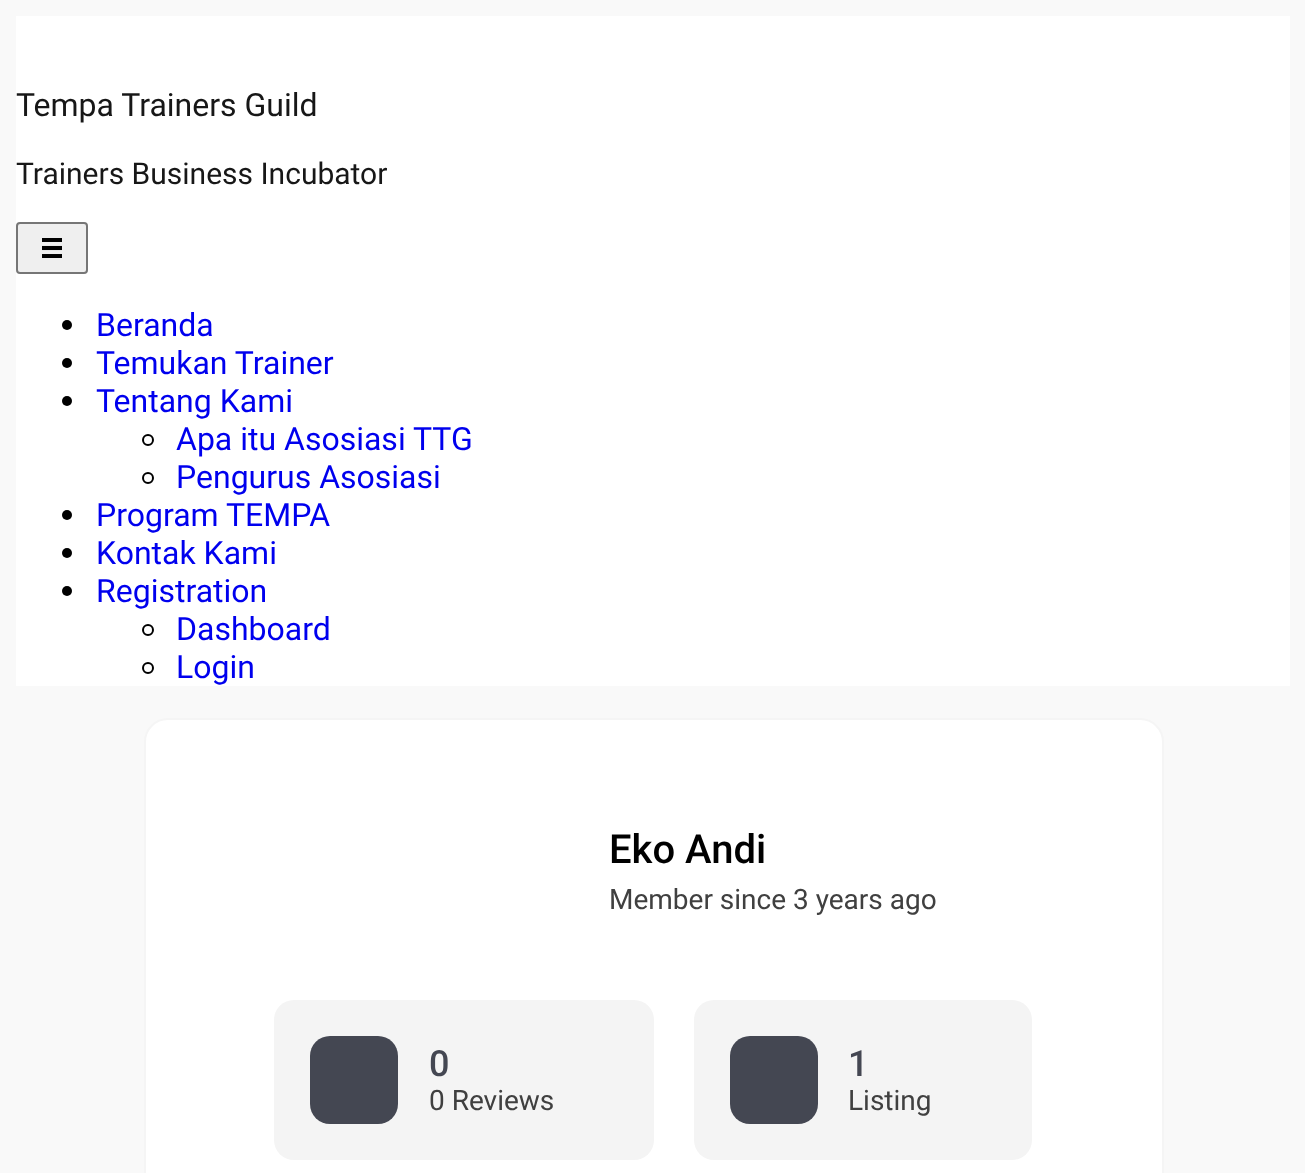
<svg xmlns="http://www.w3.org/2000/svg" width="1305" height="1173" viewBox="0 0 1305 1173">
  <rect width="100%" height="100%" fill="#f9f9f9"/>
  <rect x="16" y="16" width="1274" height="670" fill="#ffffff"/>
  <text x="16" y="116" font-family="Roboto" font-size="32" fill="#171717">Tempa Trainers Guild</text>
  <text x="16" y="184" font-family="Roboto" font-size="30" fill="#171717">Trainers Business Incubator</text>
  <rect x="17" y="223" width="70" height="50" rx="3" fill="#efefef" stroke="#767676" stroke-width="2"/>
  <image x="42" y="238" width="20" height="20" href="img1.png"/>
  <circle cx="67" cy="325" r="5" fill="#000000"/>
  <text x="96" y="336" font-family="Roboto" font-size="32" fill="#0000ee">Beranda</text>
  <circle cx="67" cy="363" r="5" fill="#000000"/>
  <text x="96" y="374" font-family="Roboto" font-size="32" fill="#0000ee">Temukan Trainer</text>
  <circle cx="67" cy="401" r="5" fill="#000000"/>
  <text x="96" y="412" font-family="Roboto" font-size="32" fill="#0000ee">Tentang Kami</text>
  <circle cx="148" cy="440" r="5" fill="none" stroke="#000000" stroke-width="2"/>
  <text x="176" y="450" font-family="Roboto" font-size="32" fill="#0000ee">Apa itu Asosiasi TTG</text>
  <circle cx="148" cy="478" r="5" fill="none" stroke="#000000" stroke-width="2"/>
  <text x="176" y="488" font-family="Roboto" font-size="32" fill="#0000ee">Pengurus Asosiasi</text>
  <circle cx="67" cy="515" r="5" fill="#000000"/>
  <text x="96" y="526" font-family="Roboto" font-size="32" fill="#0000ee">Program TEMPA</text>
  <circle cx="67" cy="553" r="5" fill="#000000"/>
  <text x="96" y="564" font-family="Roboto" font-size="32" fill="#0000ee">Kontak Kami</text>
  <circle cx="67" cy="591" r="5" fill="#000000"/>
  <text x="96" y="602" font-family="Roboto" font-size="32" fill="#0000ee">Registration</text>
  <circle cx="148" cy="630" r="5" fill="none" stroke="#000000" stroke-width="2"/>
  <text x="176" y="640" font-family="Roboto" font-size="32" fill="#0000ee">Dashboard</text>
  <circle cx="148" cy="668" r="5" fill="none" stroke="#000000" stroke-width="2"/>
  <text x="176" y="678" font-family="Roboto" font-size="32" fill="#0000ee">Login</text>
  <rect x="145" y="719" width="1018" height="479" rx="23" fill="#ffffff" stroke="#f5f5f5" stroke-width="2"/>
  <text x="609" y="863" font-family="Roboto" font-size="40" font-weight="500" fill="#000000">Eko Andi</text>
  <text x="609" y="909" font-family="Roboto" font-size="28" fill="#404040">Member since 3 years ago</text>
  <rect x="274" y="1000" width="380" height="160" rx="20" fill="#f4f4f4"/>
  <rect x="310" y="1036" width="88" height="88" rx="20" fill="#444752"/>
  <text x="429" y="1076" font-family="Roboto" font-size="36" font-weight="500" fill="#444752">0</text>
  <text x="429" y="1110" font-family="Roboto" font-size="28" fill="#404040">0 Reviews</text>
  <rect x="694" y="1000" width="338" height="160" rx="20" fill="#f4f4f4"/>
  <rect x="730" y="1036" width="88" height="88" rx="20" fill="#444752"/>
  <text x="848" y="1076" font-family="Roboto" font-size="36" font-weight="500" fill="#444752">1</text>
  <text x="848" y="1110" font-family="Roboto" font-size="28" fill="#404040">Listing</text>
</svg>
